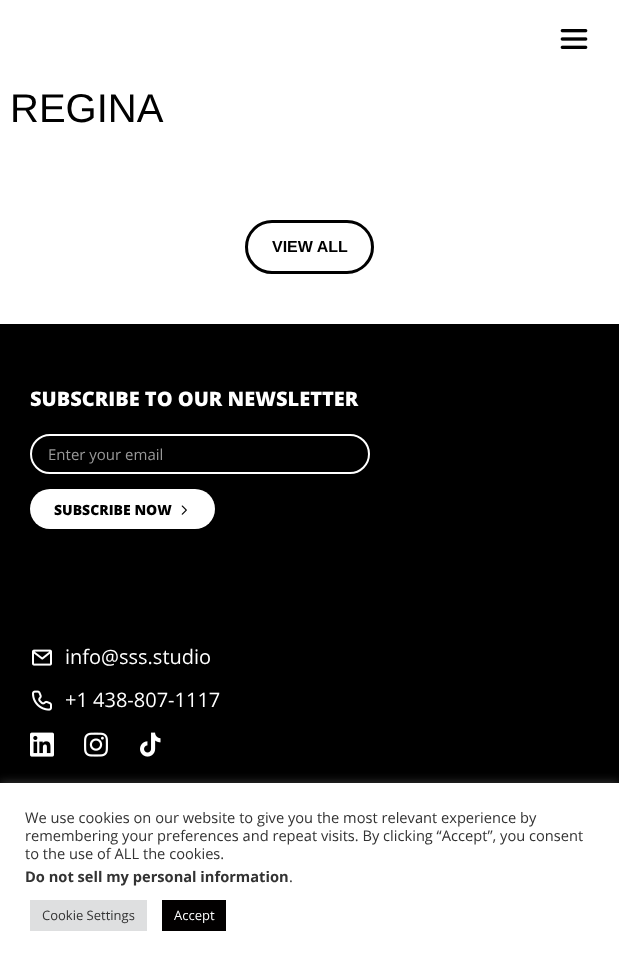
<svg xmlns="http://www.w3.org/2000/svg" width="619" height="961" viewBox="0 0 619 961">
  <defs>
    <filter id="blur1" x="-50%" y="-200%" width="200%" height="500%"><feGaussianBlur stdDeviation="5"/></filter>
  </defs>
  <rect width="100%" height="100%" fill="#ffffff"/>
  <image x="560" y="29" width="28" height="20" href="img1.png"/>
  <text x="10" y="122" font-family="Liberation Sans" font-size="40" fill="#000000">REGINA</text>
  <rect x="246.5" y="221.5" width="126" height="51" rx="25.5" fill="none" stroke="#000000" stroke-width="3"/>
  <text x="272" y="252" font-family="Liberation Sans" font-size="16" font-weight="bold" fill="#000000">VIEW ALL</text>
  <rect x="0" y="324" width="619" height="459" fill="#000000"/>
  <text x="30" y="406" font-family="Open Sans" font-size="20" font-weight="800" fill="#ffffff">SUBSCRIBE TO OUR NEWSLETTER</text>
  <rect x="31" y="435" width="338" height="38" rx="19" fill="none" stroke="#ffffff" stroke-width="2"/>
  <text x="48" y="460" font-family="Open Sans" font-size="15" fill="#999999">Enter your email</text>
  <rect x="30" y="489" width="185" height="40" rx="20" fill="#ffffff"/>
  <text x="54" y="515" font-family="Open Sans" font-size="14" font-weight="800" fill="#000000">SUBSCRIBE NOW</text>
  <image x="181" y="505" width="6" height="10" href="img2.png"/>
  <image x="32" y="649" width="20" height="17" href="img3.png"/>
  <text x="65" y="664" font-family="Open Sans" font-size="20" fill="#ffffff">info@sss.studio</text>
  <image x="32" y="690" width="20" height="21" href="img4.png"/>
  <text x="65" y="707" font-family="Open Sans" font-size="20" fill="#ffffff">+1 438-807-1117</text>
  <image x="30" y="732" width="24" height="25" href="img5.png"/>
  <image x="84" y="732" width="24" height="25" href="img6.png"/>
  <image x="140" y="732" width="21" height="25" href="img7.png"/>
  <rect x="0" y="782" width="619" height="178" fill="#acabab" fill-opacity="0.3" filter="url(#blur1)"/>
  <rect x="0" y="783" width="619" height="178" fill="#ffffff"/>
  <text x="25" y="823" font-family="Open Sans" font-size="14.65" fill="#333333">We use cookies on our website to give you the most relevant experience by</text>
  <text x="25" y="841" font-family="Open Sans" font-size="14.65" fill="#333333">remembering your preferences and repeat visits. By clicking “Accept”, you consent</text>
  <text x="25" y="859" font-family="Open Sans" font-size="14.65" fill="#333333">to the use of ALL the cookies.</text>
  <text x="25" y="882" font-family="Open Sans" font-size="14.65" font-weight="bold" fill="#333333">Do not sell my personal information</text>
  <text x="289" y="882" font-family="Open Sans" font-size="14.65" fill="#333333">.</text>
  <rect x="30" y="900" width="117" height="31" fill="#dedfe0"/>
  <text x="42" y="920" font-family="Open Sans" font-size="13" fill="#333333">Cookie Settings</text>
  <rect x="162" y="900" width="64" height="31" fill="#020000"/>
  <text x="174" y="920" font-family="Open Sans" font-size="13" fill="#ffffff">Accept</text>
</svg>
